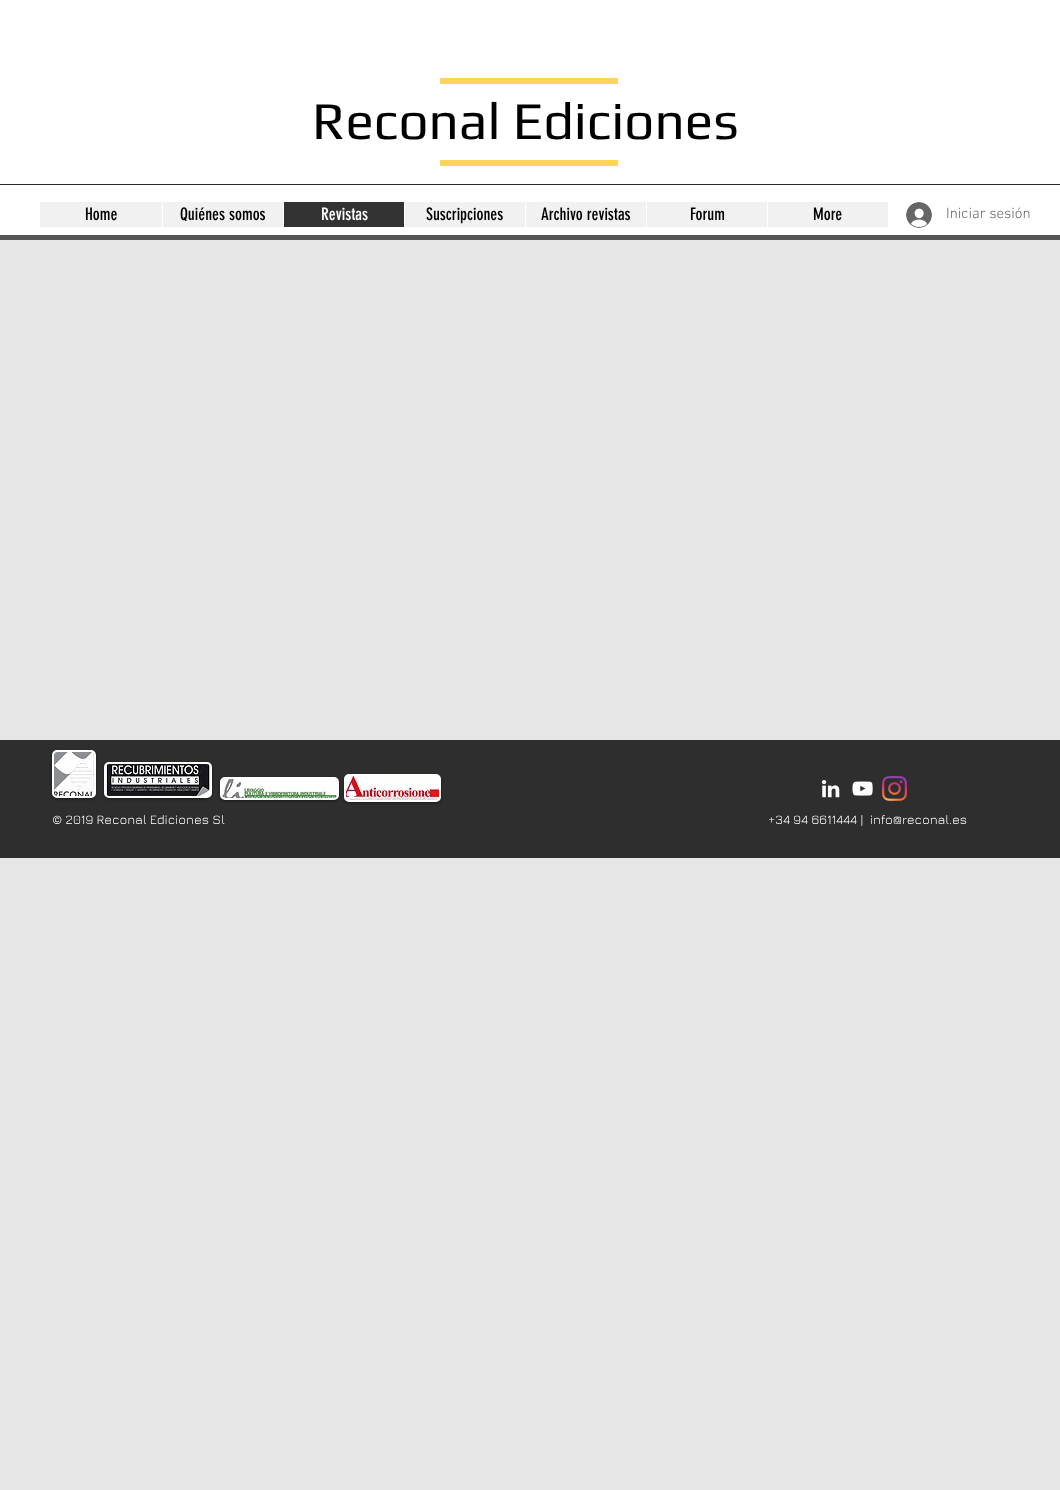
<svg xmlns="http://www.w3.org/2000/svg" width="1060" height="1490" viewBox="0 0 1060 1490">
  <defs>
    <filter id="blur1" x="-50%" y="-200%" width="200%" height="500%"><feGaussianBlur stdDeviation="1.5"/></filter>
  </defs>
  <rect width="100%" height="100%" fill="#e6e6e6"/>
  <rect x="0" y="0" width="1060" height="235" fill="#ffffff"/>
  <rect x="0" y="235" width="1060" height="5" fill="#555555"/>
  <rect x="440" y="78" width="178" height="6" fill="#ffd45a"/>
  <text x="312" y="139" font-family="Play" font-size="53" fill="#000000">Reconal Ediciones</text>
  <rect x="440" y="160" width="178" height="6" fill="#ffd45a"/>
  <rect x="0" y="184" width="1060" height="1" fill="#2a2a2a"/>
  <rect x="40" y="202" width="848" height="25" fill="#f1f1f1"/>
  <text x="85" y="220" font-family="'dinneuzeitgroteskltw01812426'" font-size="17" fill="#000000">Home</text>
  <rect x="162" y="202" width="1" height="25" fill="#ffffff"/>
  <text x="180" y="220" font-family="'dinneuzeitgroteskltw01812426'" font-size="17" fill="#000000">Quiénes somos</text>
  <rect x="284" y="202" width="120" height="25" fill="#323232"/>
  <rect x="283" y="202" width="1" height="25" fill="#ffffff"/>
  <text x="321" y="220" font-family="'dinneuzeitgroteskltw01812426'" font-size="17" fill="#ffffff">Revistas</text>
  <rect x="404" y="202" width="1" height="25" fill="#ffffff"/>
  <text x="426" y="220" font-family="'dinneuzeitgroteskltw01812426'" font-size="17" fill="#000000">Suscripciones</text>
  <rect x="525" y="202" width="1" height="25" fill="#ffffff"/>
  <text x="541" y="220" font-family="'dinneuzeitgroteskltw01812426'" font-size="17" fill="#000000">Archivo revistas</text>
  <rect x="646" y="202" width="1" height="25" fill="#ffffff"/>
  <text x="690" y="220" font-family="'dinneuzeitgroteskltw01812426'" font-size="17" fill="#000000">Forum</text>
  <rect x="767" y="202" width="1" height="25" fill="#ffffff"/>
  <text x="813" y="220" font-family="'dinneuzeitgroteskltw01812426'" font-size="17" fill="#000000">More</text>
  <image x="906" y="202" width="26" height="26" href="img1.png"/>
  <text x="946" y="218" font-family="'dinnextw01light'" font-size="15" font-weight="300" fill="#666666">Iniciar sesión</text>
  <rect x="0" y="740" width="1060" height="118" fill="#2f2e2e"/>
  <rect x="52" y="751" width="44" height="48" rx="5" fill="#000000" fill-opacity="0.5" filter="url(#blur1)"/>
  <rect x="53" y="751" width="42" height="46" rx="4" fill="#ffffff" stroke="#ffffff" stroke-width="2"/>
  <image x="54" y="752" width="40" height="44" href="img2.png"/>
  <rect x="104" y="763" width="108" height="36" rx="5" fill="#000000" fill-opacity="0.5" filter="url(#blur1)"/>
  <rect x="105" y="763" width="106" height="34" rx="4" fill="#ffffff" stroke="#ffffff" stroke-width="2"/>
  <image x="106" y="764" width="104" height="32" href="img3.png"/>
  <rect x="220" y="778" width="119" height="23" rx="5" fill="#000000" fill-opacity="0.5" filter="url(#blur1)"/>
  <rect x="221" y="778" width="117" height="21" rx="4" fill="#ffffff" stroke="#ffffff" stroke-width="2"/>
  <image x="222" y="779" width="115" height="19" href="img4.png"/>
  <rect x="344" y="775" width="97" height="28" rx="5" fill="#000000" fill-opacity="0.5" filter="url(#blur1)"/>
  <rect x="345" y="775" width="95" height="26" rx="4" fill="#ffffff" stroke="#ffffff" stroke-width="2"/>
  <image x="346" y="776" width="93" height="24" href="img5.png"/>
  <image x="821" y="779" width="19" height="19" href="img6.png"/>
  <image x="852" y="781" width="21" height="15" href="img7.png"/>
  <image x="882" y="776" width="25" height="25" href="img8.png"/>
  <text x="52" y="824" font-family="Jura" font-size="13" fill="#ffffff">© 2019 Reconal Ediciones Sl</text>
  <text x="768" y="824" font-family="Jura" font-size="13" fill="#ffffff">+34 94 6611444 |</text>
  <text x="870" y="824" font-family="Jura" font-size="13" fill="#ffffff">info@reconal.es</text>
</svg>
